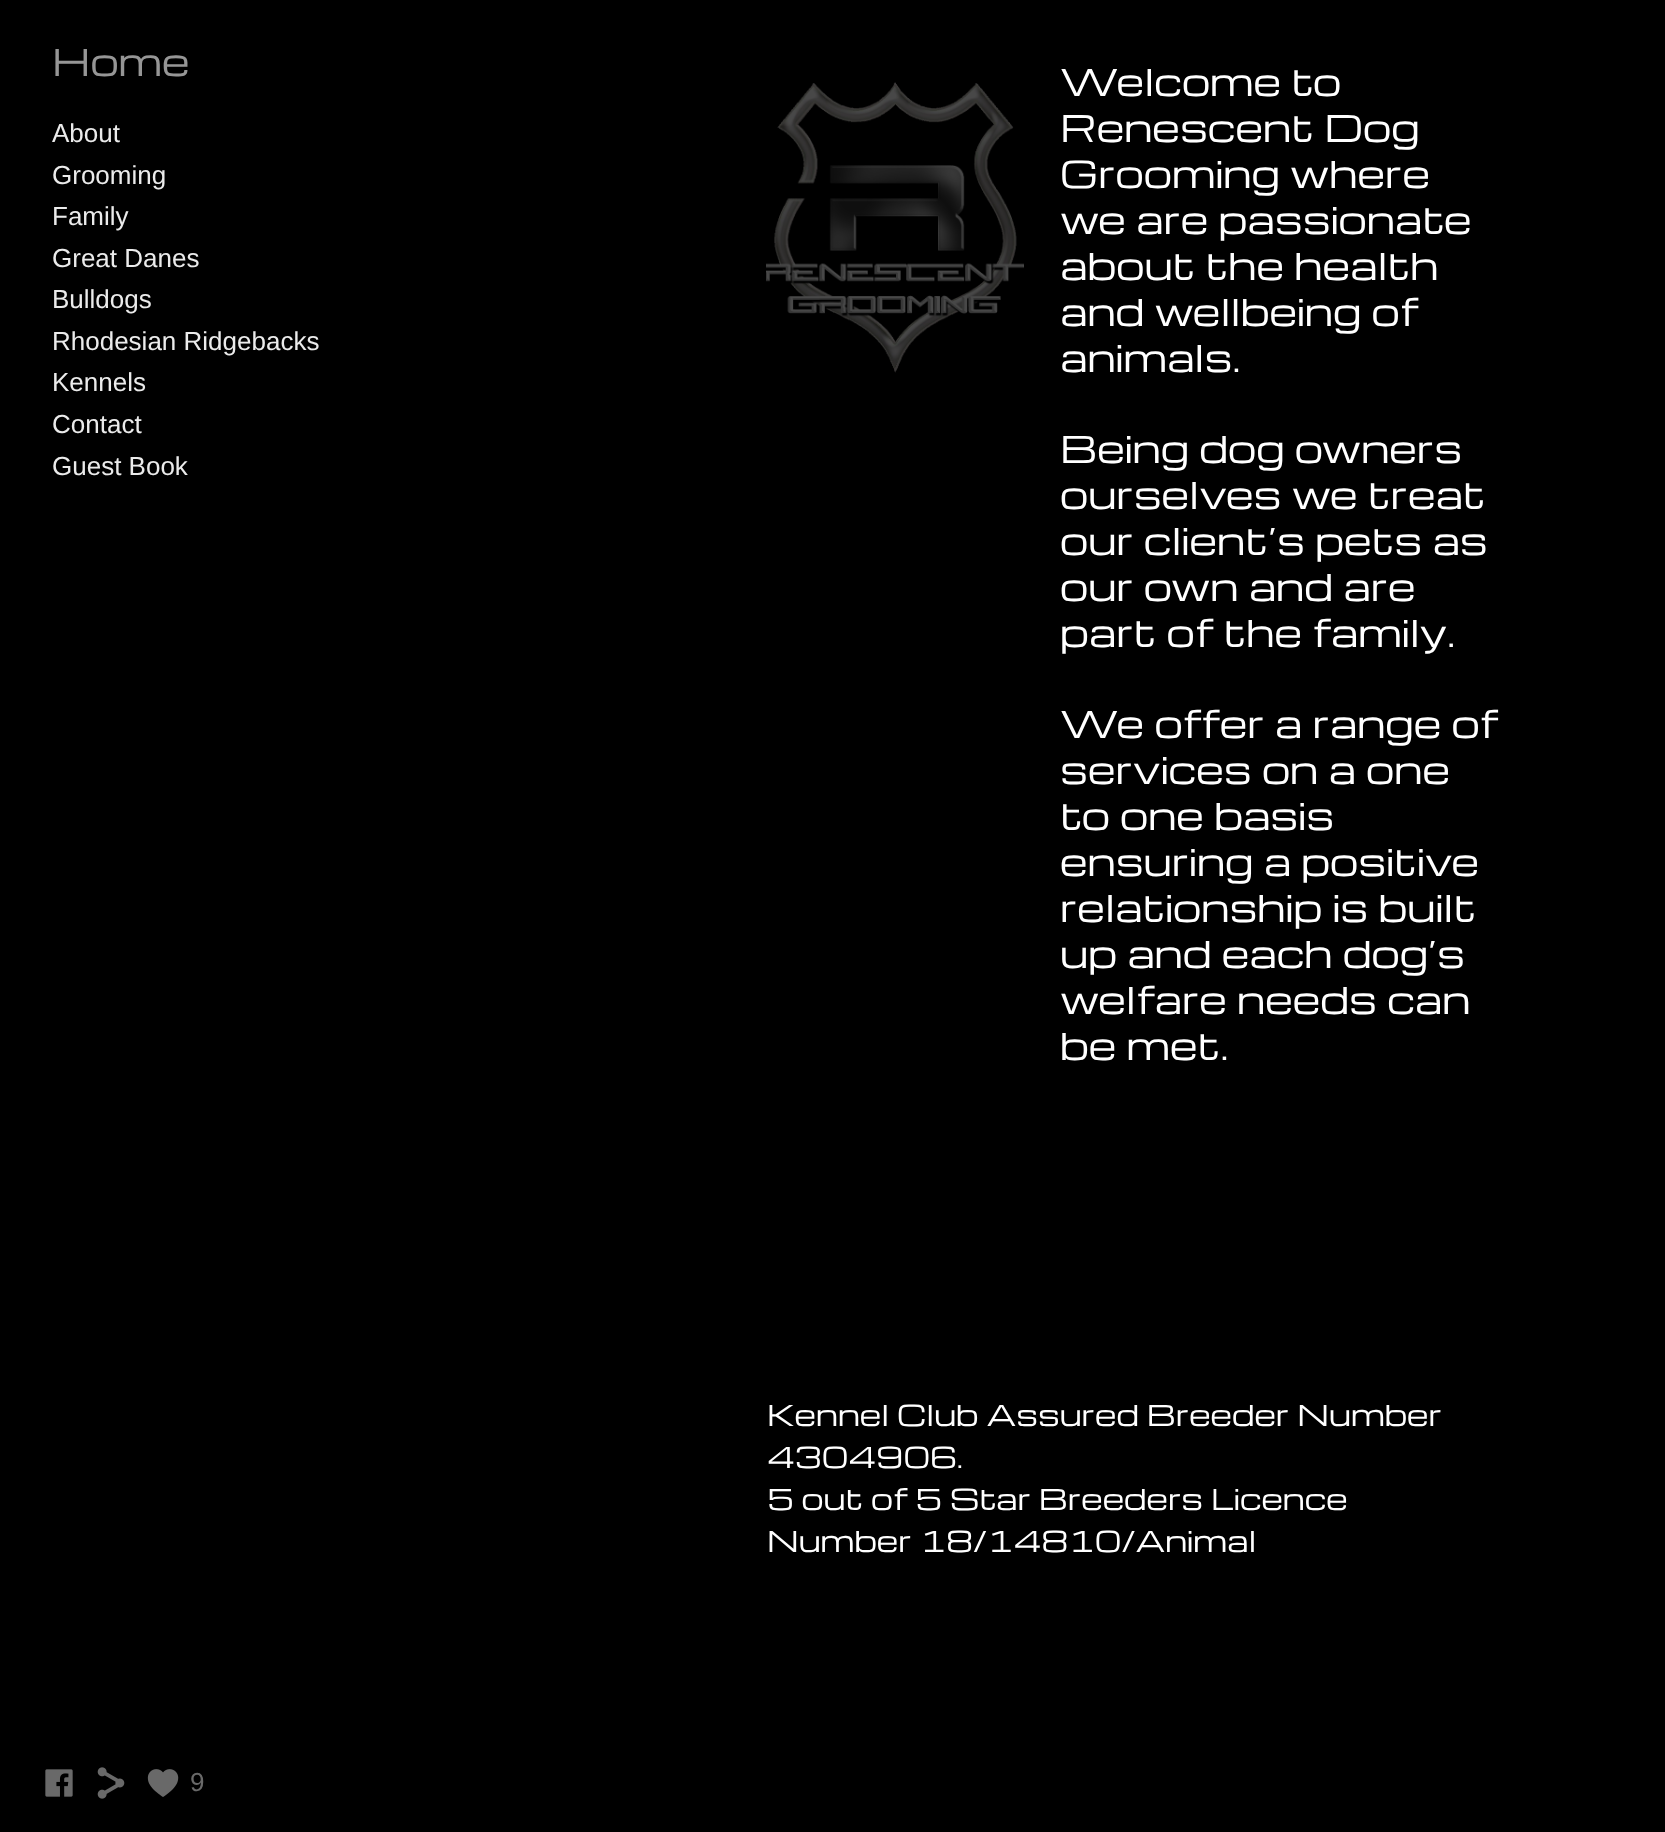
<svg xmlns="http://www.w3.org/2000/svg" width="1665" height="1832" viewBox="0 0 1665 1832">
  <rect width="100%" height="100%" fill="#000000"/>
  <text x="52" y="76" font-family="Michroma" font-size="36" fill="#969696">Home</text>
  <text x="52" y="142" font-family="Liberation Sans" font-size="26" fill="#ebebeb">About</text>
  <text x="52" y="184" font-family="Liberation Sans" font-size="26" fill="#ebebeb">Grooming</text>
  <text x="52" y="225" font-family="Liberation Sans" font-size="26" fill="#ebebeb">Family</text>
  <text x="52" y="267" font-family="Liberation Sans" font-size="26" fill="#ebebeb">Great Danes</text>
  <text x="52" y="308" font-family="Liberation Sans" font-size="26" fill="#ebebeb">Bulldogs</text>
  <text x="52" y="350" font-family="Liberation Sans" font-size="26" fill="#ebebeb">Rhodesian Ridgebacks</text>
  <text x="52" y="391" font-family="Liberation Sans" font-size="26" fill="#ebebeb">Kennels</text>
  <text x="52" y="433" font-family="Liberation Sans" font-size="26" fill="#ebebeb">Contact</text>
  <text x="52" y="475" font-family="Liberation Sans" font-size="26" fill="#ebebeb">Guest Book</text>
  <image x="766" y="82" width="258" height="291" href="img1.png"/>
  <text x="1060" y="96" font-family="Michroma" font-size="36" fill="#ffffff">Welcome to</text>
  <text x="1060" y="142" font-family="Michroma" font-size="36" fill="#ffffff">Renescent Dog</text>
  <text x="1060" y="188" font-family="Michroma" font-size="36" fill="#ffffff">Grooming where</text>
  <text x="1060" y="234" font-family="Michroma" font-size="36" fill="#ffffff">we are passionate</text>
  <text x="1060" y="280" font-family="Michroma" font-size="36" fill="#ffffff">about the health</text>
  <text x="1060" y="326" font-family="Michroma" font-size="36" fill="#ffffff">and wellbeing of</text>
  <text x="1060" y="372" font-family="Michroma" font-size="36" fill="#ffffff">animals.</text>
  <text x="1060" y="463" font-family="Michroma" font-size="36" fill="#ffffff">Being dog owners</text>
  <text x="1060" y="509" font-family="Michroma" font-size="36" fill="#ffffff">ourselves we treat</text>
  <text x="1060" y="555" font-family="Michroma" font-size="36" fill="#ffffff">our client’s pets as</text>
  <text x="1060" y="601" font-family="Michroma" font-size="36" fill="#ffffff">our own and are</text>
  <text x="1060" y="647" font-family="Michroma" font-size="36" fill="#ffffff">part of the family.</text>
  <text x="1060" y="738" font-family="Michroma" font-size="36" fill="#ffffff">We offer a range of</text>
  <text x="1060" y="784" font-family="Michroma" font-size="36" fill="#ffffff">services on a one</text>
  <text x="1060" y="830" font-family="Michroma" font-size="36" fill="#ffffff">to one basis</text>
  <text x="1060" y="876" font-family="Michroma" font-size="36" fill="#ffffff">ensuring a positive</text>
  <text x="1060" y="922" font-family="Michroma" font-size="36" fill="#ffffff">relationship is built</text>
  <text x="1060" y="968" font-family="Michroma" font-size="36" fill="#ffffff">up and each dog’s</text>
  <text x="1060" y="1014" font-family="Michroma" font-size="36" fill="#ffffff">welfare needs can</text>
  <text x="1060" y="1060" font-family="Michroma" font-size="36" fill="#ffffff">be met.</text>
  <text x="767" y="1426" font-family="Michroma" font-size="28" fill="#ffffff">Kennel Club Assured Breeder Number</text>
  <text x="767" y="1468" font-family="Michroma" font-size="28" fill="#ffffff">4304906.</text>
  <text x="767" y="1510" font-family="Michroma" font-size="28" fill="#ffffff">5 out of 5 Star Breeders Licence</text>
  <text x="767" y="1552" font-family="Michroma" font-size="28" fill="#ffffff">Number 18/14810/Animal</text>
  <image x="45" y="1769" width="28" height="28" href="img2.png"/>
  <image x="97" y="1767" width="28" height="32" href="img3.png"/>
  <image x="147" y="1769" width="32" height="28" href="img4.png"/>
  <text x="190" y="1791" font-family="Liberation Sans" font-size="26" fill="#696969">9</text>
</svg>
